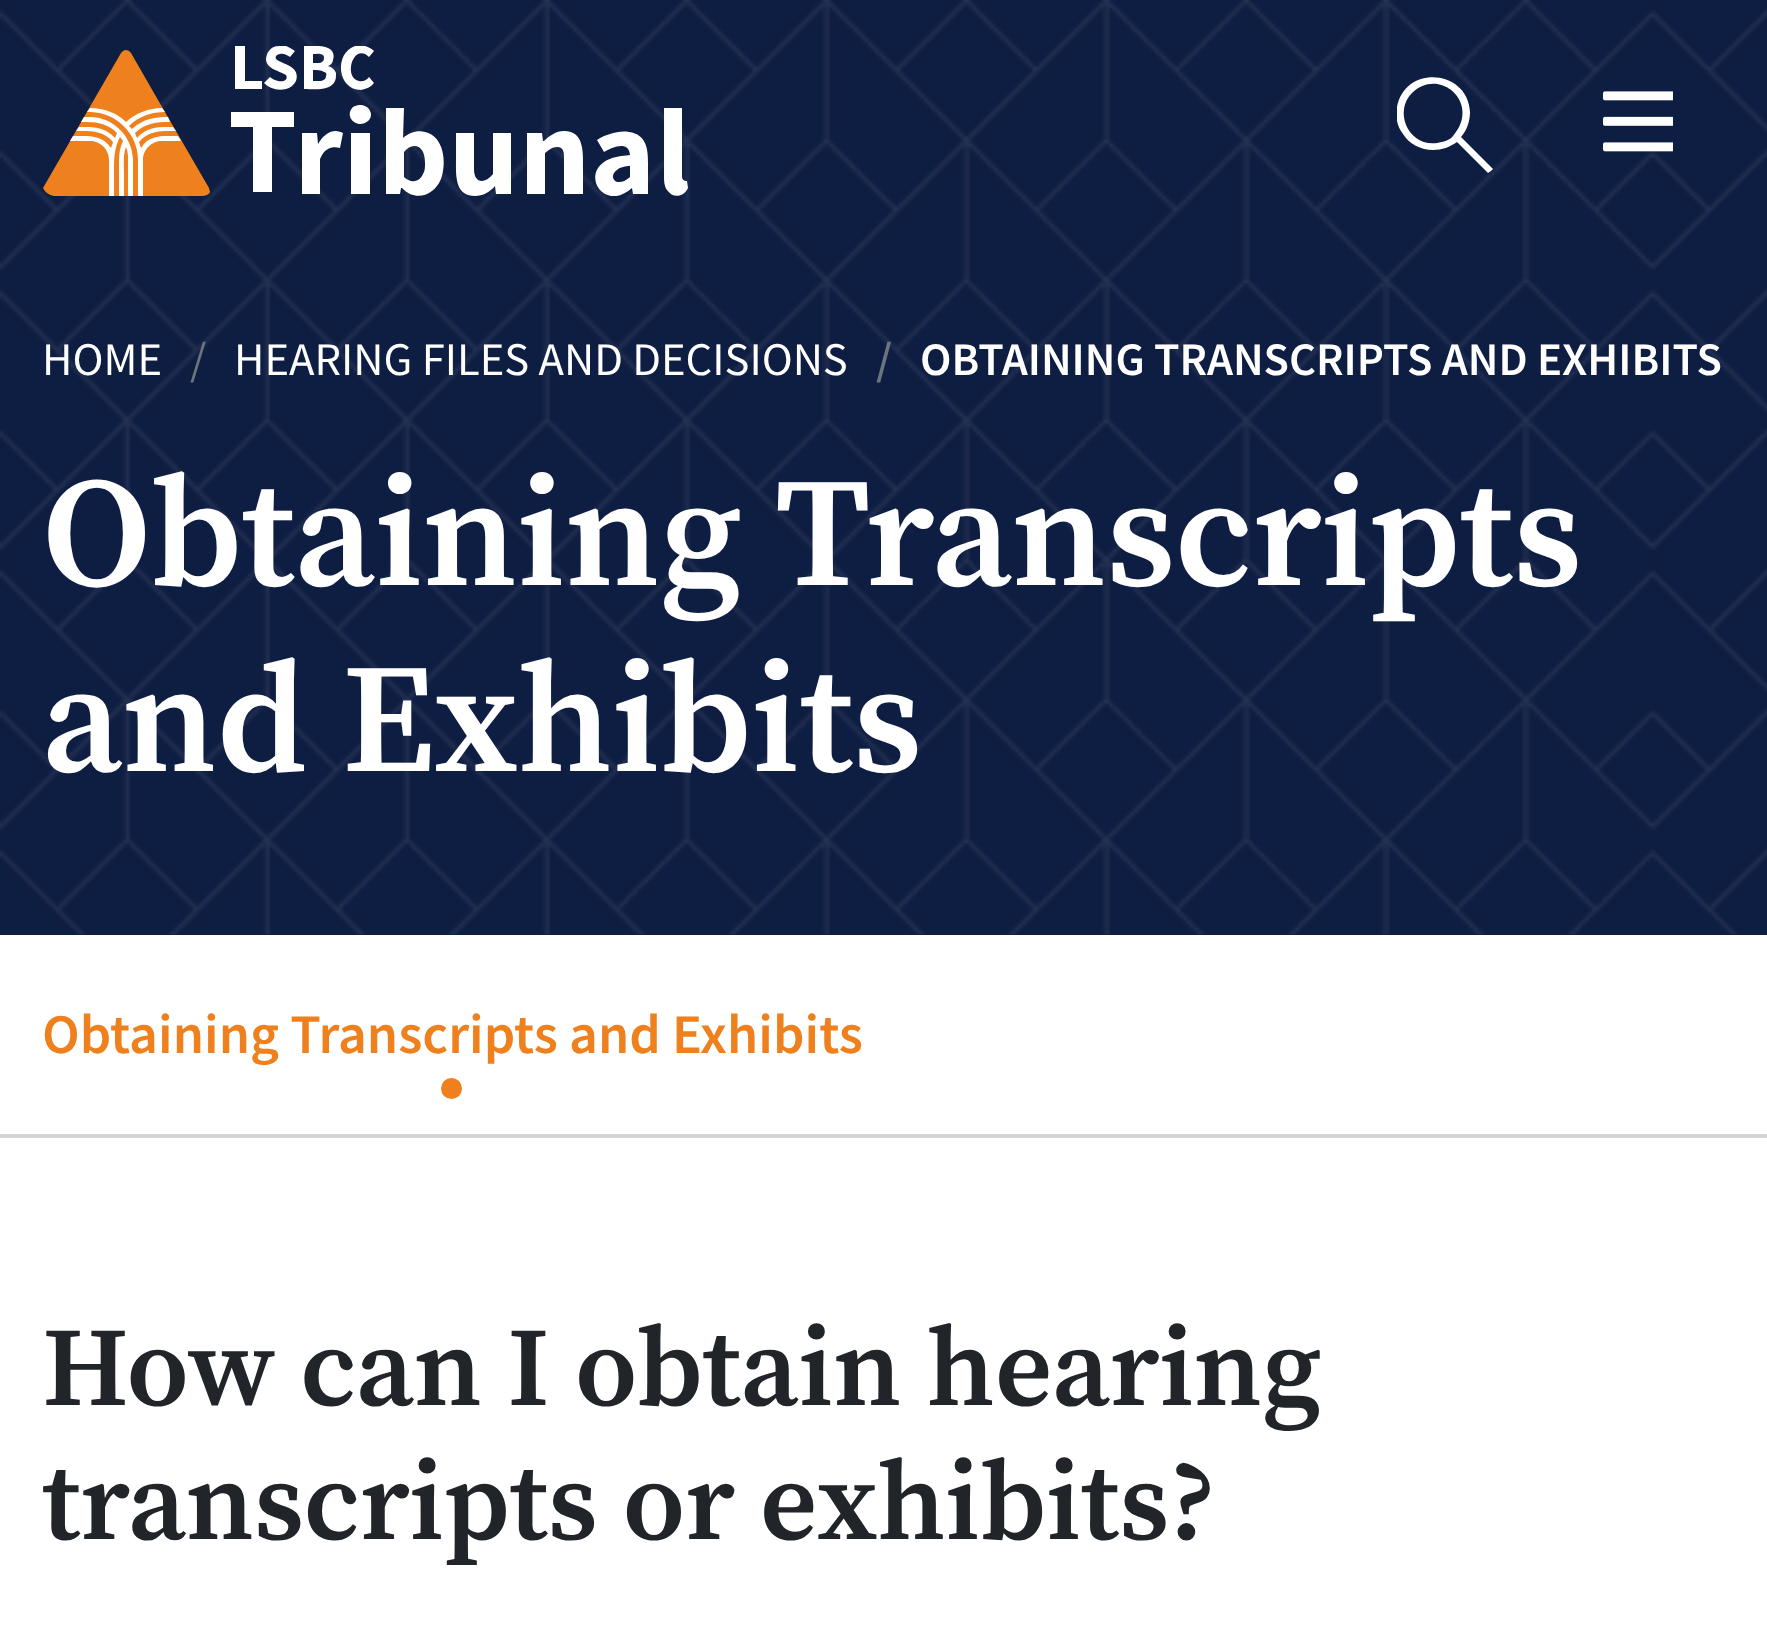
<svg xmlns="http://www.w3.org/2000/svg" width="1767" height="1638" viewBox="0 0 1767 1638">
  <defs>
    <clipPath id="clip1"><rect x="42" y="46" width="648" height="150"/></clipPath>
  </defs>
  <rect width="100%" height="100%" fill="#ffffff"/>
  <rect x="0" y="934" width="1767" height="1" fill="#0e1d42"/>
  <image x="0" y="0" width="1767" height="935" href="img1.png"/>
  <g clip-path="url(#clip1)">
    <path d="M131 53C128 49 124 49 121 53L43 188C49 201 71 196 81 196H179C185 196 208 199 210 192C210 191 209 189 209 188L158 100Z" fill="#ee811d"/>
  </g>
  <path d="M245 46H235V89H262V81H245Z" fill="#ffffff"/>
  <g clip-path="url(#clip1)">
    <path d="M286 46C289 47 292 49 295 51L290 57C287 55 283 53 280 54C278 54 277 55 276 56C272 64 302 62 296 81C294 85 290 88 286 89C278 91 270 89 264 83L270 77C272 79 275 80 278 81C281 82 289 81 286 75L282 73C276 70 267 68 266 60C266 57 267 53 269 51C273 45 279 46 286 46Z" fill="#ffffff"/>
    <path d="M304 46C312 46 338 43 333 60C333 62 331 65 328 66C332 67 335 70 336 73C336 76 336 79 335 81C330 92 312 89 304 89ZM323 55C320 53 316 54 313 54V63C317 63 324 64 324 58C324 57 324 56 323 55ZM324 72C321 70 317 70 313 70V81C318 81 326 82 326 76C327 74 326 72 324 72Z" fill="#ffffff" fill-rule="evenodd"/>
  </g>
  <path d="M365 46C369 47 372 49 374 51L369 57C353 42 343 78 359 81C363 82 367 80 369 77L374 83C371 87 366 89 361 90C337 90 334 53 355 46Z" fill="#ffffff"/>
  <path d="M84 117L81 122C95 122 106 122 117 133L115 138C104 126 92 127 79 127L76 131C90 131 103 130 113 142L111 148C102 134 87 136 73 136L70 141H90C101 141 109 150 109 160V196H114V172C114 160 114 148 120 137L123 141C120 147 119 154 119 160V196H124V172C124 164 123 155 126 147C128 151 128 156 128 160V196H133V159C132 136 113 117 90 117ZM90 108L87 112H91C117 113 138 134 138 160V196H143V160C143 149 152 141 162 141H181L178 136C164 136 149 134 141 148L139 142C149 130 162 131 176 131L173 127C159 127 148 126 137 138L135 133C145 123 157 122 170 122L168 117C154 117 143 119 132 129L129 126C139 116 152 112 165 112L162 108C149 108 136 113 126 122C117 113 104 108 90 108Z" fill="#ffffff" fill-rule="evenodd"/>
  <path d="M294 112H231V127H253V192H272V127H294Z" fill="#ffffff"/>
  <path d="M336 131C328 131 322 137 318 144L317 133H302V194H320V159L322 155C326 148 333 146 340 148L343 133C341 132 338 131 336 131Z" fill="#ffffff"/>
  <path d="M353 107C355 106 357 105 359 105C369 104 375 115 368 121C358 130 343 117 353 107ZM351 133H370V194H351Z" fill="#ffffff" fill-rule="evenodd"/>
  <path d="M386 108V194H400L401 188H402C415 202 434 196 441 179C447 163 444 136 425 132C417 130 409 133 403 138L404 108ZM425 163C425 152 421 146 414 146C411 146 407 148 404 152V177C410 183 419 183 423 174C425 171 425 167 425 163Z" fill="#ffffff" fill-rule="evenodd"/>
  <path d="M474 133H456V158C456 174 454 196 475 196C483 196 490 192 495 186L496 194H511V133H493V174C485 184 474 184 474 169Z" fill="#ffffff"/>
  <path d="M564 131C556 131 549 136 544 141H543L542 133H527V194H545V153C549 150 552 147 557 147C564 147 564 153 564 159V194H583V169C583 154 585 131 564 131Z" fill="#ffffff"/>
  <g clip-path="url(#clip1)">
    <path d="M610 134C606 135 601 137 597 140L604 152C612 147 629 140 630 155C621 156 611 157 604 162C582 177 605 212 632 188L633 194H648V171C648 155 650 135 629 132C623 131 616 132 610 134ZM630 177V166C626 166 620 167 617 170C607 177 617 189 630 177Z" fill="#ffffff" fill-rule="evenodd"/>
  </g>
  <path d="M682 108V176C682 180 684 181 687 181L688 188C684 197 673 199 667 190C664 186 664 180 664 175V108Z" fill="#ffffff"/>
  <path d="M1433 150C1421 150 1409 144 1403 134C1400 130 1398 126 1397 121V107C1405 64 1468 69 1470 112C1470 121 1467 130 1461 137L1493 169C1492 170 1490 172 1488 173L1457 142C1450 147 1442 150 1433 150ZM1412 93C1393 112 1409 147 1437 143C1443 142 1450 140 1453 136C1482 103 1439 66 1412 93Z" fill="#ffffff" fill-rule="evenodd"/>
  <image x="1603" y="91" width="70" height="61" href="img2.png"/>
  <text x="42" y="375" font-family="Source Sans Pro" font-size="46.7" fill="#ffffff">HOME</text>
  <text x="190" y="375" font-family="Source Sans Pro" font-size="46.7" fill="#6c757d">/</text>
  <text x="234" y="375" font-family="Source Sans Pro" font-size="46.7" fill="#ffffff">HEARING FILES AND DECISIONS</text>
  <text x="876" y="375" font-family="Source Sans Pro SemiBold" font-size="46.7" font-weight="600" fill="#6c757d">/</text>
  <text x="920" y="375" font-family="Source Sans Pro SemiBold" font-size="46.7" font-weight="600" fill="#ffffff">OBTAINING TRANSCRIPTS AND EXHIBITS</text>
  <text x="42" y="585" font-family="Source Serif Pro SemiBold" font-size="155.1" font-weight="600" fill="#ffffff">Obtaining Transcripts</text>
  <text x="42" y="771" font-family="Source Serif Pro SemiBold" font-size="155.1" font-weight="600" fill="#ffffff">and Exhibits</text>
  <rect x="0" y="1134" width="1767" height="4" fill="#d4d4d4"/>
  <text x="42" y="1053" font-family="Source Sans Pro SemiBold" font-size="56" font-weight="600" fill="#ee811d">Obtaining Transcripts and Exhibits</text>
  <circle cx="451.5" cy="1088.5" r="10.5" fill="#ee811d"/>
  <text x="42" y="1405" font-family="Source Serif Pro SemiBold" font-size="112" font-weight="600" fill="#212529">How can I obtain hearing</text>
  <text x="42" y="1539" font-family="Source Serif Pro SemiBold" font-size="112" font-weight="600" fill="#212529">transcripts or exhibits?</text>
</svg>
